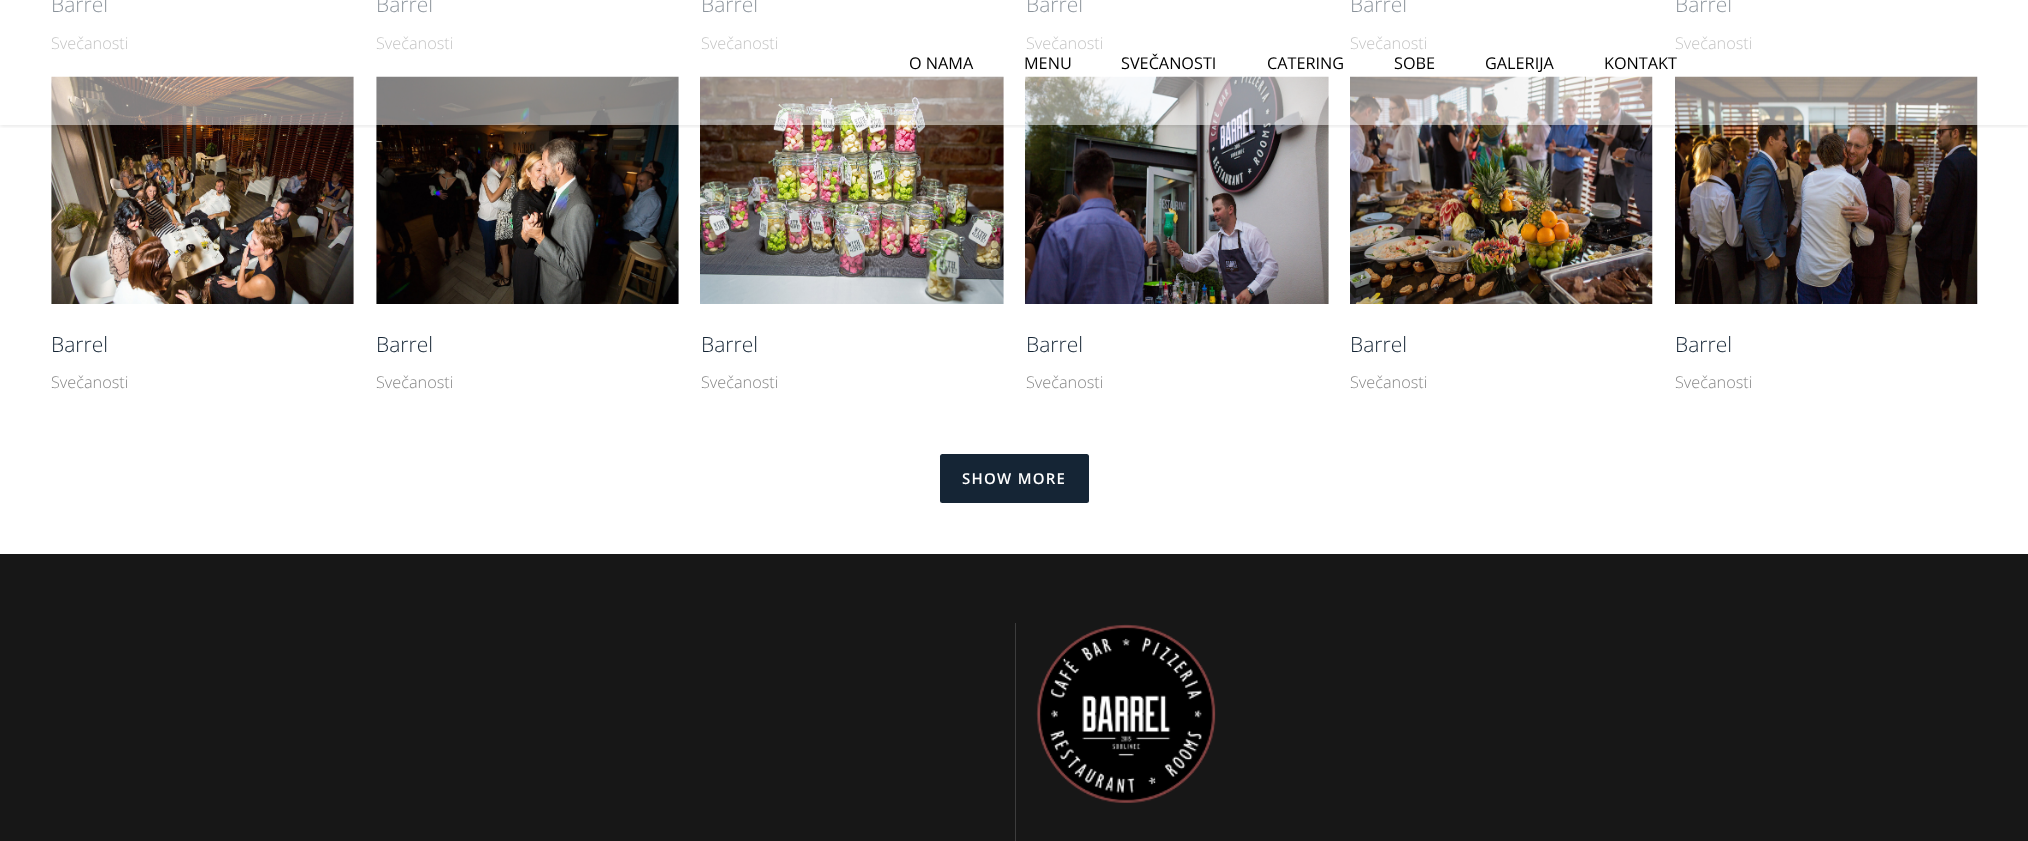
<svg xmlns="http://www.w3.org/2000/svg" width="2028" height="841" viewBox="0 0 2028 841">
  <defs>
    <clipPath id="clip1"><rect x="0" y="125" width="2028" height="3"/></clipPath>
    <filter id="blur1" x="-50%" y="-200%" width="200%" height="500%"><feGaussianBlur stdDeviation="2"/></filter>
  </defs>
  <rect width="100%" height="100%" fill="#ffffff"/>
  <text x="51" y="12" font-family="Open Sans" font-size="21" font-weight="300" fill="#152535">Barrel</text>
  <text x="51" y="49" font-family="Open Sans" font-size="16.25" font-weight="300" fill="#888888">Svečanosti</text>
  <text x="376" y="12" font-family="Open Sans" font-size="21" font-weight="300" fill="#152535">Barrel</text>
  <text x="376" y="49" font-family="Open Sans" font-size="16.25" font-weight="300" fill="#888888">Svečanosti</text>
  <text x="701" y="12" font-family="Open Sans" font-size="21" font-weight="300" fill="#152535">Barrel</text>
  <text x="701" y="49" font-family="Open Sans" font-size="16.25" font-weight="300" fill="#888888">Svečanosti</text>
  <text x="1026" y="12" font-family="Open Sans" font-size="21" font-weight="300" fill="#152535">Barrel</text>
  <text x="1026" y="49" font-family="Open Sans" font-size="16.25" font-weight="300" fill="#888888">Svečanosti</text>
  <text x="1350" y="12" font-family="Open Sans" font-size="21" font-weight="300" fill="#152535">Barrel</text>
  <text x="1350" y="49" font-family="Open Sans" font-size="16.25" font-weight="300" fill="#888888">Svečanosti</text>
  <text x="1675" y="12" font-family="Open Sans" font-size="21" font-weight="300" fill="#152535">Barrel</text>
  <text x="1675" y="49" font-family="Open Sans" font-size="16.25" font-weight="300" fill="#888888">Svečanosti</text>
  <image x="51" y="76" width="303" height="228" href="img1.png"/>
  <text x="51" y="352" font-family="Open Sans" font-size="21" font-weight="300" fill="#152535">Barrel</text>
  <text x="51" y="388" font-family="Open Sans" font-size="16.25" font-weight="300" fill="#888888">Svečanosti</text>
  <image x="376" y="76" width="303" height="228" href="img2.png"/>
  <text x="376" y="352" font-family="Open Sans" font-size="21" font-weight="300" fill="#152535">Barrel</text>
  <text x="376" y="388" font-family="Open Sans" font-size="16.25" font-weight="300" fill="#888888">Svečanosti</text>
  <image x="700" y="76" width="304" height="228" href="img3.png"/>
  <text x="701" y="352" font-family="Open Sans" font-size="21" font-weight="300" fill="#152535">Barrel</text>
  <text x="701" y="388" font-family="Open Sans" font-size="16.25" font-weight="300" fill="#888888">Svečanosti</text>
  <image x="1025" y="76" width="304" height="228" href="img4.png"/>
  <text x="1026" y="352" font-family="Open Sans" font-size="21" font-weight="300" fill="#152535">Barrel</text>
  <text x="1026" y="388" font-family="Open Sans" font-size="16.25" font-weight="300" fill="#888888">Svečanosti</text>
  <image x="1350" y="76" width="303" height="228" href="img5.png"/>
  <text x="1350" y="352" font-family="Open Sans" font-size="21" font-weight="300" fill="#152535">Barrel</text>
  <text x="1350" y="388" font-family="Open Sans" font-size="16.25" font-weight="300" fill="#888888">Svečanosti</text>
  <image x="1675" y="76" width="303" height="228" href="img6.png"/>
  <text x="1675" y="352" font-family="Open Sans" font-size="21" font-weight="300" fill="#152535">Barrel</text>
  <text x="1675" y="388" font-family="Open Sans" font-size="16.25" font-weight="300" fill="#888888">Svečanosti</text>
  <rect x="940" y="454" width="149" height="49" rx="2.5" fill="#152535"/>
  <text x="962" y="484" font-family="Open Sans" font-size="15" font-weight="600" letter-spacing="1.25" fill="#ffffff">SHOW MORE</text>
  <g clip-path="url(#clip1)">
    <rect x="0" y="1" width="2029" height="125" fill="#000000" fill-opacity="0.11" filter="url(#blur1)"/>
  </g>
  <rect x="51" y="0" width="1927" height="125" fill="#ffffff" fill-opacity="0.5"/>
  <text x="909" y="69" font-family="Open Sans" font-size="16.25" fill="#000000">O NAMA</text>
  <text x="1024" y="69" font-family="Open Sans" font-size="16.25" fill="#000000">MENU</text>
  <text x="1121" y="69" font-family="Open Sans" font-size="16.25" fill="#000000">SVEČANOSTI</text>
  <text x="1267" y="69" font-family="Open Sans" font-size="16.25" fill="#000000">CATERING</text>
  <text x="1394" y="69" font-family="Open Sans" font-size="16.25" fill="#000000">SOBE</text>
  <text x="1485" y="69" font-family="Open Sans" font-size="16.25" fill="#000000">GALERIJA</text>
  <text x="1604" y="69" font-family="Open Sans" font-size="16.25" fill="#000000">KONTAKT</text>
  <rect x="0" y="554" width="2028" height="287" fill="#171717"/>
  <rect x="1015" y="623" width="1" height="218" fill="#3d3d3d"/>
  <image x="1036" y="624" width="180" height="179" href="img7.png"/>
</svg>
